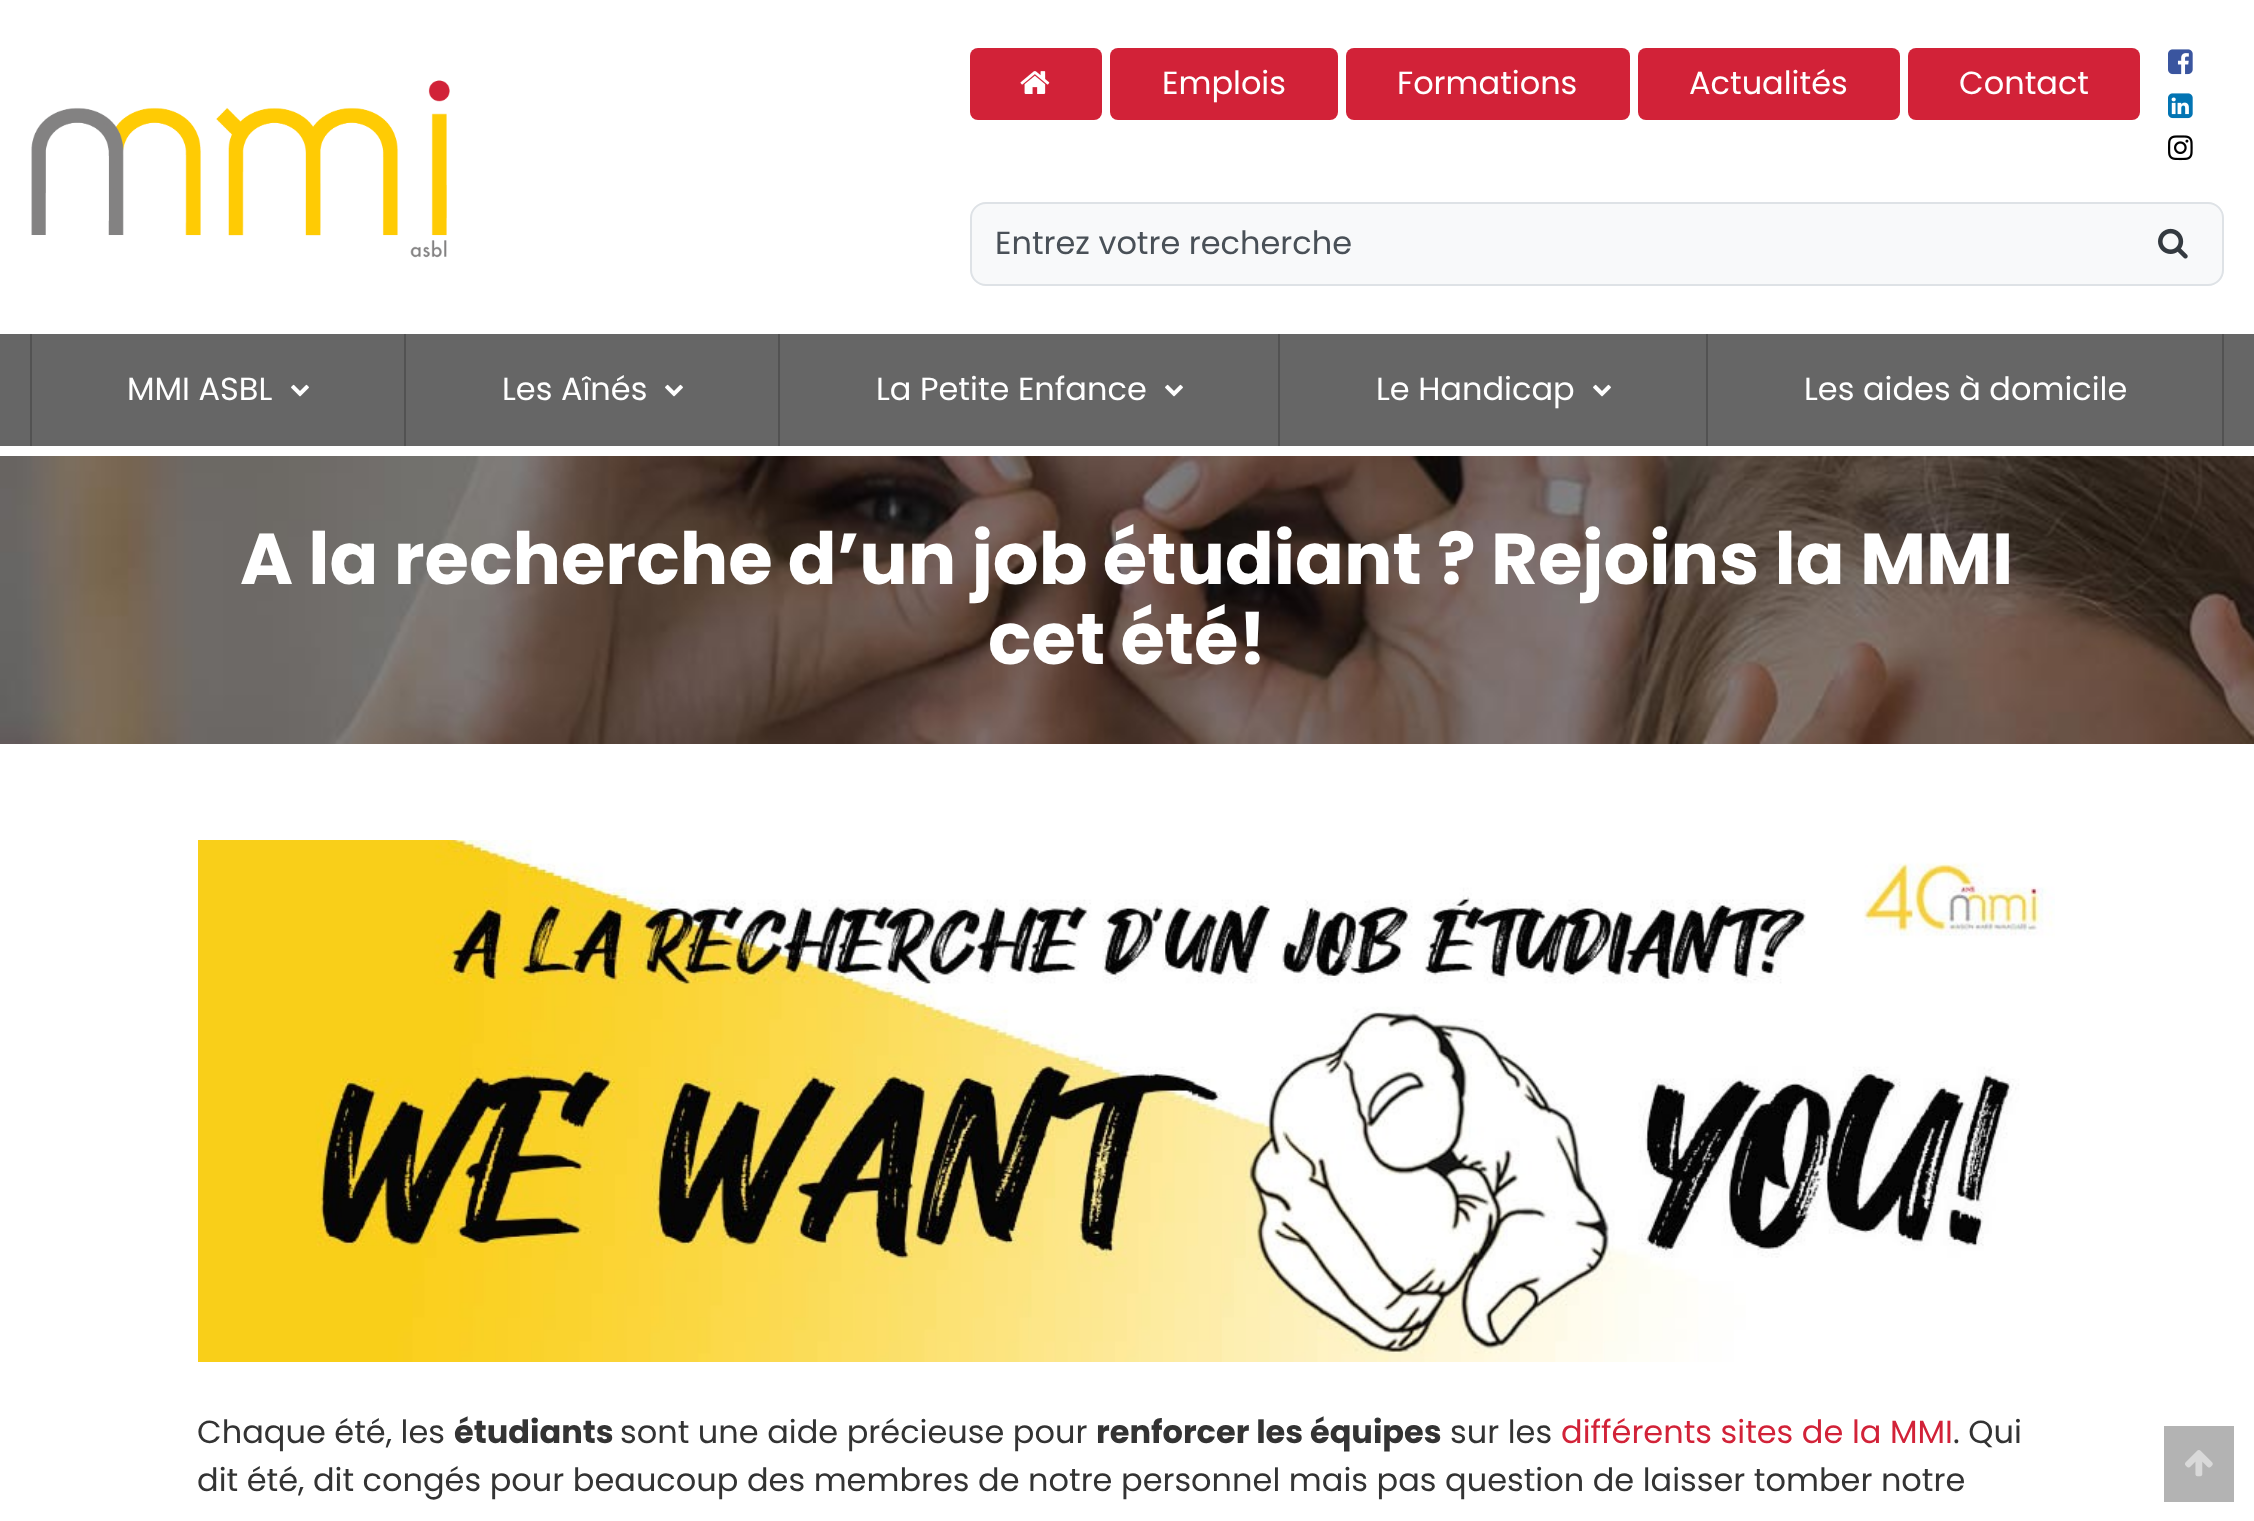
<svg xmlns="http://www.w3.org/2000/svg" width="2254" height="1521" viewBox="0 0 2254 1521">
  <rect width="100%" height="100%" fill="#ffffff"/>
  <image x="31" y="80" width="419" height="178" href="img1.png"/>
  <rect x="970" y="48" width="132" height="72" rx="8" fill="#d22238"/>
  <image x="1020" y="71" width="30" height="23" href="img2.png"/>
  <rect x="1110" y="48" width="228" height="72" rx="8" fill="#d22238"/>
  <text x="1162" y="94" font-family="Poppins" font-size="32" fill="#ffffff">Emplois</text>
  <rect x="1346" y="48" width="284" height="72" rx="8" fill="#d22238"/>
  <text x="1397" y="94" font-family="Poppins" font-size="32" fill="#ffffff">Formations</text>
  <rect x="1638" y="48" width="262" height="72" rx="8" fill="#d22238"/>
  <text x="1689" y="94" font-family="Poppins" font-size="32" fill="#ffffff">Actualités</text>
  <rect x="1908" y="48" width="232" height="72" rx="8" fill="#d22238"/>
  <text x="1959" y="94" font-family="Poppins" font-size="32" fill="#ffffff">Contact</text>
  <image x="2168" y="49" width="25" height="26" href="img3.png"/>
  <image x="2168" y="93" width="25" height="26" href="img4.png"/>
  <image x="2168" y="135" width="25" height="26" href="img5.png"/>
  <rect x="971" y="203" width="1252" height="82" rx="15" fill="#f8f9fa" stroke="#dee2e6" stroke-width="2"/>
  <text x="995" y="254" font-family="Poppins" font-size="32" fill="#495057">Entrez votre recherche</text>
  <image x="2158" y="228" width="30" height="31" href="img6.png"/>
  <rect x="0" y="334" width="2254" height="112" fill="#666666"/>
  <rect x="30" y="334" width="2" height="112" fill="#525252"/>
  <text x="127" y="400" font-family="Poppins" font-size="32" fill="#ffffff">MMI ASBL</text>
  <image x="291" y="384" width="18" height="13" href="img7.png"/>
  <rect x="404" y="334" width="2" height="112" fill="#525252"/>
  <text x="502" y="400" font-family="Poppins" font-size="32" fill="#ffffff">Les Aînés</text>
  <image x="665" y="384" width="18" height="13" href="img7.png"/>
  <rect x="778" y="334" width="2" height="112" fill="#525252"/>
  <text x="876" y="400" font-family="Poppins" font-size="32" fill="#ffffff">La Petite Enfance</text>
  <image x="1165" y="384" width="18" height="13" href="img7.png"/>
  <rect x="1278" y="334" width="2" height="112" fill="#525252"/>
  <text x="1376" y="400" font-family="Poppins" font-size="32" fill="#ffffff">Le Handicap</text>
  <image x="1593" y="384" width="18" height="13" href="img7.png"/>
  <rect x="2222" y="334" width="2" height="112" fill="#525252"/>
  <rect x="1706" y="334" width="2" height="112" fill="#525252"/>
  <text x="1804" y="400" font-family="Poppins" font-size="32" fill="#ffffff">Les aides à domicile</text>
  <image x="0" y="456" width="2254" height="288" href="img8.png"/>
  <text x="240" y="584" font-family="Poppins" font-size="72" font-weight="bold" fill="#ffffff">A la recherche d’un job étudiant ? Rejoins la MMI</text>
  <text x="988" y="664" font-family="Poppins" font-size="72" font-weight="bold" fill="#ffffff">cet été!</text>
  <image x="198" y="840" width="1857" height="522" href="img9.png"/>
  <text x="197" y="1443" font-family="Poppins" font-size="32" fill="#333333">Chaque été, les</text>
  <text x="454" y="1443" font-family="Poppins" font-size="32" font-weight="bold" fill="#333333">étudiants</text>
  <text x="620" y="1443" font-family="Poppins" font-size="32" fill="#333333">sont une aide précieuse pour</text>
  <text x="1096" y="1443" font-family="Poppins" font-size="32" font-weight="bold" fill="#333333">renforcer les équipes</text>
  <text x="1450" y="1443" font-family="Poppins" font-size="32" fill="#333333">sur les</text>
  <text x="1561" y="1443" font-family="Poppins" font-size="32" fill="#d22238">différents sites de la MMI</text>
  <text x="1953" y="1443" font-family="Poppins" font-size="32" fill="#333333">. Qui</text>
  <text x="197" y="1491" font-family="Poppins" font-size="32" fill="#333333">dit été, dit congés pour beaucoup des membres de notre personnel mais pas question de laisser tomber notre</text>
  <rect x="2164" y="1426" width="70" height="76" fill="#b3b3b3"/>
  <image x="2185" y="1450" width="28" height="27" href="img10.png"/>
</svg>
